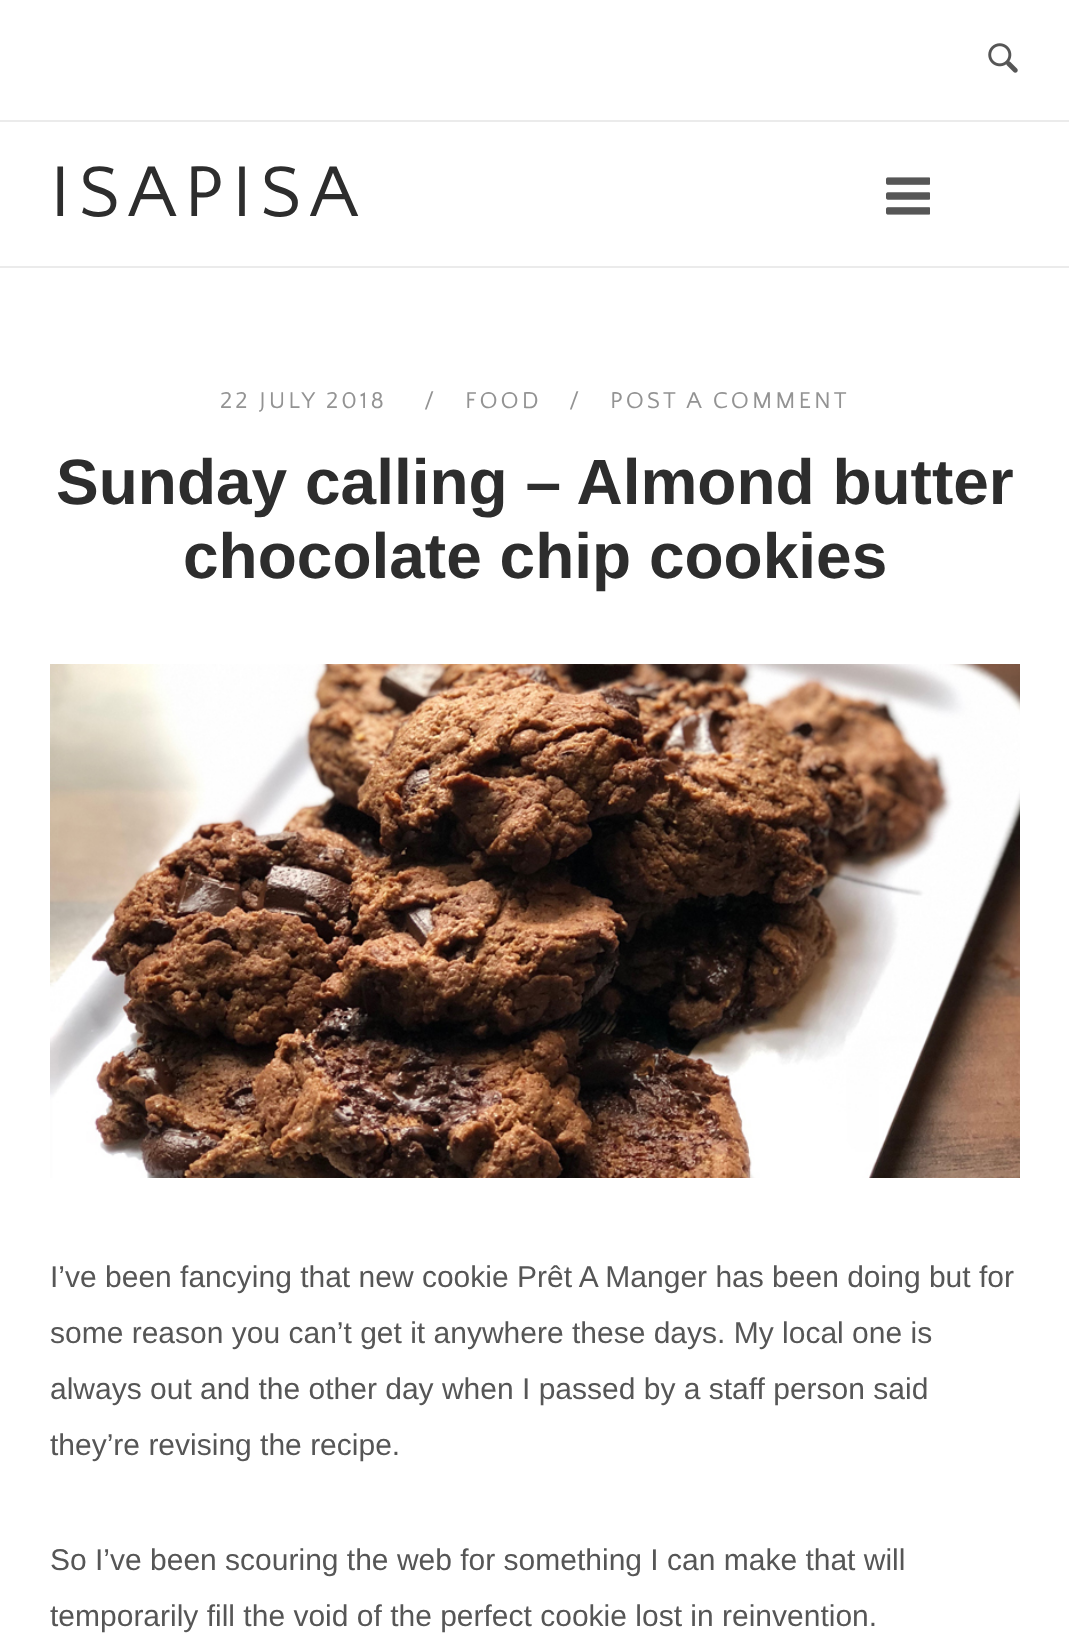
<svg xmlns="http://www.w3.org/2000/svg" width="1069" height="1651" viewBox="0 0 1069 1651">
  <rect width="100%" height="100%" fill="#ffffff"/>
  <rect x="0" y="266" width="1069" height="2" fill="#ebebeb"/>
  <rect x="0" y="120" width="1069" height="2" fill="#ebebeb"/>
  <image x="988" y="43" width="30" height="30" href="img1.png"/>
  <text x="50" y="216" font-family="Quattrocento Sans" font-size="75" letter-spacing="8" fill="#2d2d2d">ISAPISA</text>
  <image x="886" y="177" width="44" height="38" href="img2.png"/>
  <text x="220" y="408" font-family="Quattrocento Sans" font-size="24" letter-spacing="3" fill="#939393">22 JULY 2018</text>
  <text x="424" y="408" font-family="Quattrocento Sans" font-size="24" letter-spacing="3" fill="#939393">/</text>
  <text x="465" y="408" font-family="Quattrocento Sans" font-size="24" letter-spacing="3" fill="#939393">FOOD</text>
  <text x="569" y="408" font-family="Quattrocento Sans" font-size="24" letter-spacing="3" fill="#939393">/</text>
  <text x="610" y="408" font-family="Quattrocento Sans" font-size="24" letter-spacing="3" fill="#939393">POST A COMMENT</text>
  <text x="56" y="504" font-family="Liberation Sans" font-size="64" font-weight="bold" fill="#2d2d2d">Sunday calling – Almond butter</text>
  <text x="183" y="578" font-family="Liberation Sans" font-size="64" font-weight="bold" fill="#2d2d2d">chocolate chip cookies</text>
  <image x="50" y="664" width="970" height="514" href="img3.png"/>
  <text x="50" y="1287" font-family="Liberation Sans" font-size="30" fill="#565656">I’ve been fancying that new cookie Prêt A Manger has been doing but for</text>
  <text x="50" y="1343" font-family="Liberation Sans" font-size="30" fill="#565656">some reason you can’t get it anywhere these days. My local one is</text>
  <text x="50" y="1399" font-family="Liberation Sans" font-size="30" fill="#565656">always out and the other day when I passed by a staff person said</text>
  <text x="50" y="1455" font-family="Liberation Sans" font-size="30" fill="#565656">they’re revising the recipe.</text>
  <text x="50" y="1570" font-family="Liberation Sans" font-size="30" fill="#565656">So I’ve been scouring the web for something I can make that will</text>
  <text x="50" y="1626" font-family="Liberation Sans" font-size="30" fill="#565656">temporarily fill the void of the perfect cookie lost in reinvention.</text>
</svg>
